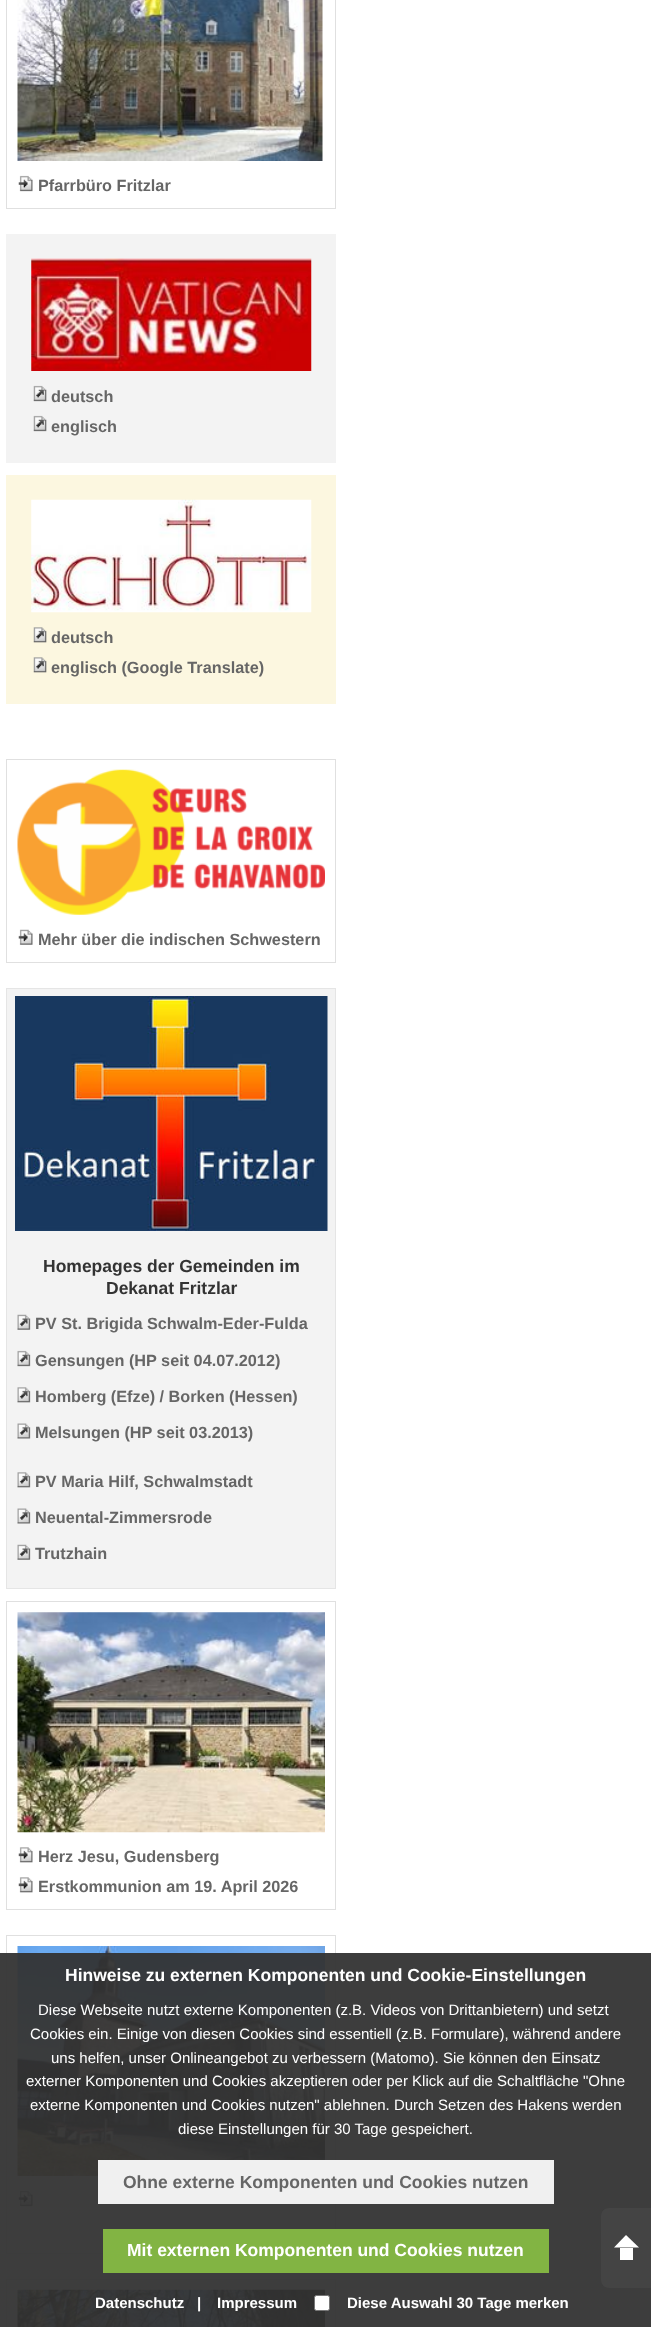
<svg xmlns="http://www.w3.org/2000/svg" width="651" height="2327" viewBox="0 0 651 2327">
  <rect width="100%" height="100%" fill="#ffffff"/>
  <rect x="6.5" y="-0.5" width="329" height="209" fill="none" stroke="#e0e0e0"/>
  <image x="17" y="0" width="306" height="161" href="img1.png"/>
  <image x="18" y="175" width="15" height="17" href="img2.png"/>
  <text x="38" y="191" font-family="Liberation Sans" font-size="16.25" font-weight="bold" fill="#666666">Pfarrbüro Fritzlar</text>
  <rect x="6" y="234" width="330" height="229" fill="#f3f3f3"/>
  <image x="31" y="258" width="281" height="113" href="img3.png"/>
  <image x="33" y="385" width="14" height="17" href="img4.png"/>
  <text x="51" y="402" font-family="Liberation Sans" font-size="16.25" font-weight="bold" fill="#666666">deutsch</text>
  <image x="33" y="415" width="14" height="17" href="img5.png"/>
  <text x="51" y="432" font-family="Liberation Sans" font-size="16.25" font-weight="bold" fill="#666666">englisch</text>
  <rect x="6" y="475" width="330" height="229" fill="#fcf7e0"/>
  <image x="31" y="499" width="281" height="114" href="img6.png"/>
  <image x="33" y="627" width="14" height="16" href="img7.png"/>
  <text x="51" y="643" font-family="Liberation Sans" font-size="16.25" font-weight="bold" fill="#666666">deutsch</text>
  <image x="33" y="657" width="14" height="16" href="img7.png"/>
  <text x="51" y="673" font-family="Liberation Sans" font-size="16.25" font-weight="bold" fill="#666666">englisch (Google Translate)</text>
  <rect x="6.5" y="759.5" width="329" height="203" fill="none" stroke="#e0e0e0"/>
  <image x="17" y="769" width="308" height="146" href="img8.png"/>
  <image x="18" y="929" width="15" height="16" href="img9.png"/>
  <text x="38" y="945" font-family="Liberation Sans" font-size="16.25" font-weight="bold" fill="#666666">Mehr über die indischen Schwestern</text>
  <rect x="6.5" y="988.5" width="329" height="600" fill="#f3f3f3" stroke="#e5e5e5"/>
  <image x="15" y="996" width="313" height="235" href="img10.png"/>
  <text x="43" y="1272" font-family="Liberation Sans" font-size="17.5" font-weight="bold" fill="#333333">Homepages der Gemeinden im</text>
  <text x="106" y="1294" font-family="Liberation Sans" font-size="17.5" font-weight="bold" fill="#333333">Dekanat Fritzlar</text>
  <image x="17" y="1314" width="14" height="16" href="img11.png"/>
  <text x="35" y="1329" font-family="Liberation Sans" font-size="16.25" font-weight="bold" fill="#666666">PV St. Brigida Schwalm-Eder-Fulda</text>
  <image x="17" y="1350" width="14" height="17" href="img12.png"/>
  <text x="35" y="1366" font-family="Liberation Sans" font-size="16.25" font-weight="bold" fill="#666666">Gensungen (HP seit 04.07.2012)</text>
  <image x="17" y="1387" width="14" height="16" href="img13.png"/>
  <text x="35" y="1402" font-family="Liberation Sans" font-size="16.25" font-weight="bold" fill="#666666">Homberg (Efze) / Borken (Hessen)</text>
  <image x="17" y="1423" width="14" height="16" href="img14.png"/>
  <text x="35" y="1438" font-family="Liberation Sans" font-size="16.25" font-weight="bold" fill="#666666">Melsungen (HP seit 03.2013)</text>
  <image x="17" y="1472" width="14" height="16" href="img13.png"/>
  <text x="35" y="1487" font-family="Liberation Sans" font-size="16.25" font-weight="bold" fill="#666666">PV Maria Hilf, Schwalmstadt</text>
  <image x="17" y="1508" width="14" height="16" href="img14.png"/>
  <text x="35" y="1523" font-family="Liberation Sans" font-size="16.25" font-weight="bold" fill="#666666">Neuental-Zimmersrode</text>
  <image x="17" y="1544" width="14" height="16" href="img11.png"/>
  <text x="35" y="1559" font-family="Liberation Sans" font-size="16.25" font-weight="bold" fill="#666666">Trutzhain</text>
  <rect x="6.5" y="1601.5" width="329" height="308" fill="none" stroke="#e0e0e0"/>
  <image x="17" y="1612" width="308" height="221" href="img15.png"/>
  <image x="18" y="1847" width="15" height="16" href="img16.png"/>
  <text x="38" y="1862" font-family="Liberation Sans" font-size="16.25" font-weight="bold" fill="#666666">Herz Jesu, Gudensberg</text>
  <image x="18" y="1877" width="15" height="16" href="img16.png"/>
  <text x="38" y="1892" font-family="Liberation Sans" font-size="16.25" font-weight="bold" fill="#666666">Erstkommunion am 19. April 2026</text>
  <rect x="6.5" y="1935.5" width="329" height="318" fill="none" stroke="#e0e0e0"/>
  <image x="17" y="1946" width="308" height="230" href="img17.png"/>
  <image x="18" y="2190" width="15" height="17" href="img2.png"/>
  <rect x="6.5" y="2279.5" width="329" height="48" fill="none" stroke="#e0e0e0"/>
  <image x="17" y="2289" width="308" height="38" href="img18.png"/>
  <rect x="0" y="1953" width="651" height="374" fill="#333333" fill-opacity="0.95"/>
  <text x="65" y="1981" font-family="Liberation Sans" font-size="17.5" font-weight="bold" fill="#ffffff">Hinweise zu externen Komponenten und Cookie-Einstellungen</text>
  <text x="38" y="2015" font-family="Liberation Sans" font-size="15" fill="#ffffff">Diese Webseite nutzt externe Komponenten (z.B. Videos von Drittanbietern) und setzt</text>
  <text x="30" y="2039" font-family="Liberation Sans" font-size="15" fill="#ffffff">Cookies ein. Einige von diesen Cookies sind essentiell (z.B. Formulare), während andere</text>
  <text x="51" y="2063" font-family="Liberation Sans" font-size="15" fill="#ffffff">uns helfen, unser Onlineangebot zu verbessern (Matomo). Sie können den Einsatz</text>
  <text x="26" y="2086" font-family="Liberation Sans" font-size="15" fill="#ffffff">externer Komponenten und Cookies akzeptieren oder per Klick auf die Schaltfläche "Ohne</text>
  <text x="30" y="2110" font-family="Liberation Sans" font-size="15" fill="#ffffff">externe Komponenten und Cookies nutzen" ablehnen. Durch Setzen des Hakens werden</text>
  <text x="178" y="2134" font-family="Liberation Sans" font-size="15" fill="#ffffff">diese Einstellungen für 30 Tage gespeichert.</text>
  <rect x="98" y="2160" width="456" height="44" fill="#f0f0f0"/>
  <text x="123" y="2188" font-family="Liberation Sans" font-size="17.5" font-weight="bold" fill="#666666">Ohne externe Komponenten und Cookies nutzen</text>
  <rect x="103" y="2229" width="446" height="44" fill="#82b443"/>
  <text x="127" y="2256" font-family="Liberation Sans" font-size="17.5" font-weight="bold" fill="#ffffff">Mit externen Komponenten und Cookies nutzen</text>
  <text x="95" y="2308" font-family="Liberation Sans" font-size="15" font-weight="bold" fill="#ffffff">Datenschutz</text>
  <text x="197" y="2308" font-family="Liberation Sans" font-size="15" font-weight="bold" fill="#ffffff">|</text>
  <text x="217" y="2308" font-family="Liberation Sans" font-size="15" font-weight="bold" fill="#ffffff">Impressum</text>
  <rect x="314.5" y="2295.5" width="15" height="15" rx="2" fill="#ffffff" stroke="#767676"/>
  <text x="347" y="2308" font-family="Liberation Sans" font-size="15" font-weight="bold" fill="#ffffff">Diese Auswahl 30 Tage merken</text>
  <path d="M609 2208H651V2288H609C604.5 2288 601 2284.5 601 2280V2216C601 2211.5 604.5 2208 609 2208Z" fill="#444444"/>
  <path d="M639 2247.5H614L626 2235Z" fill="#ffffff"/>
  <rect x="620" y="2248" width="13" height="12" fill="#ffffff"/>
</svg>
